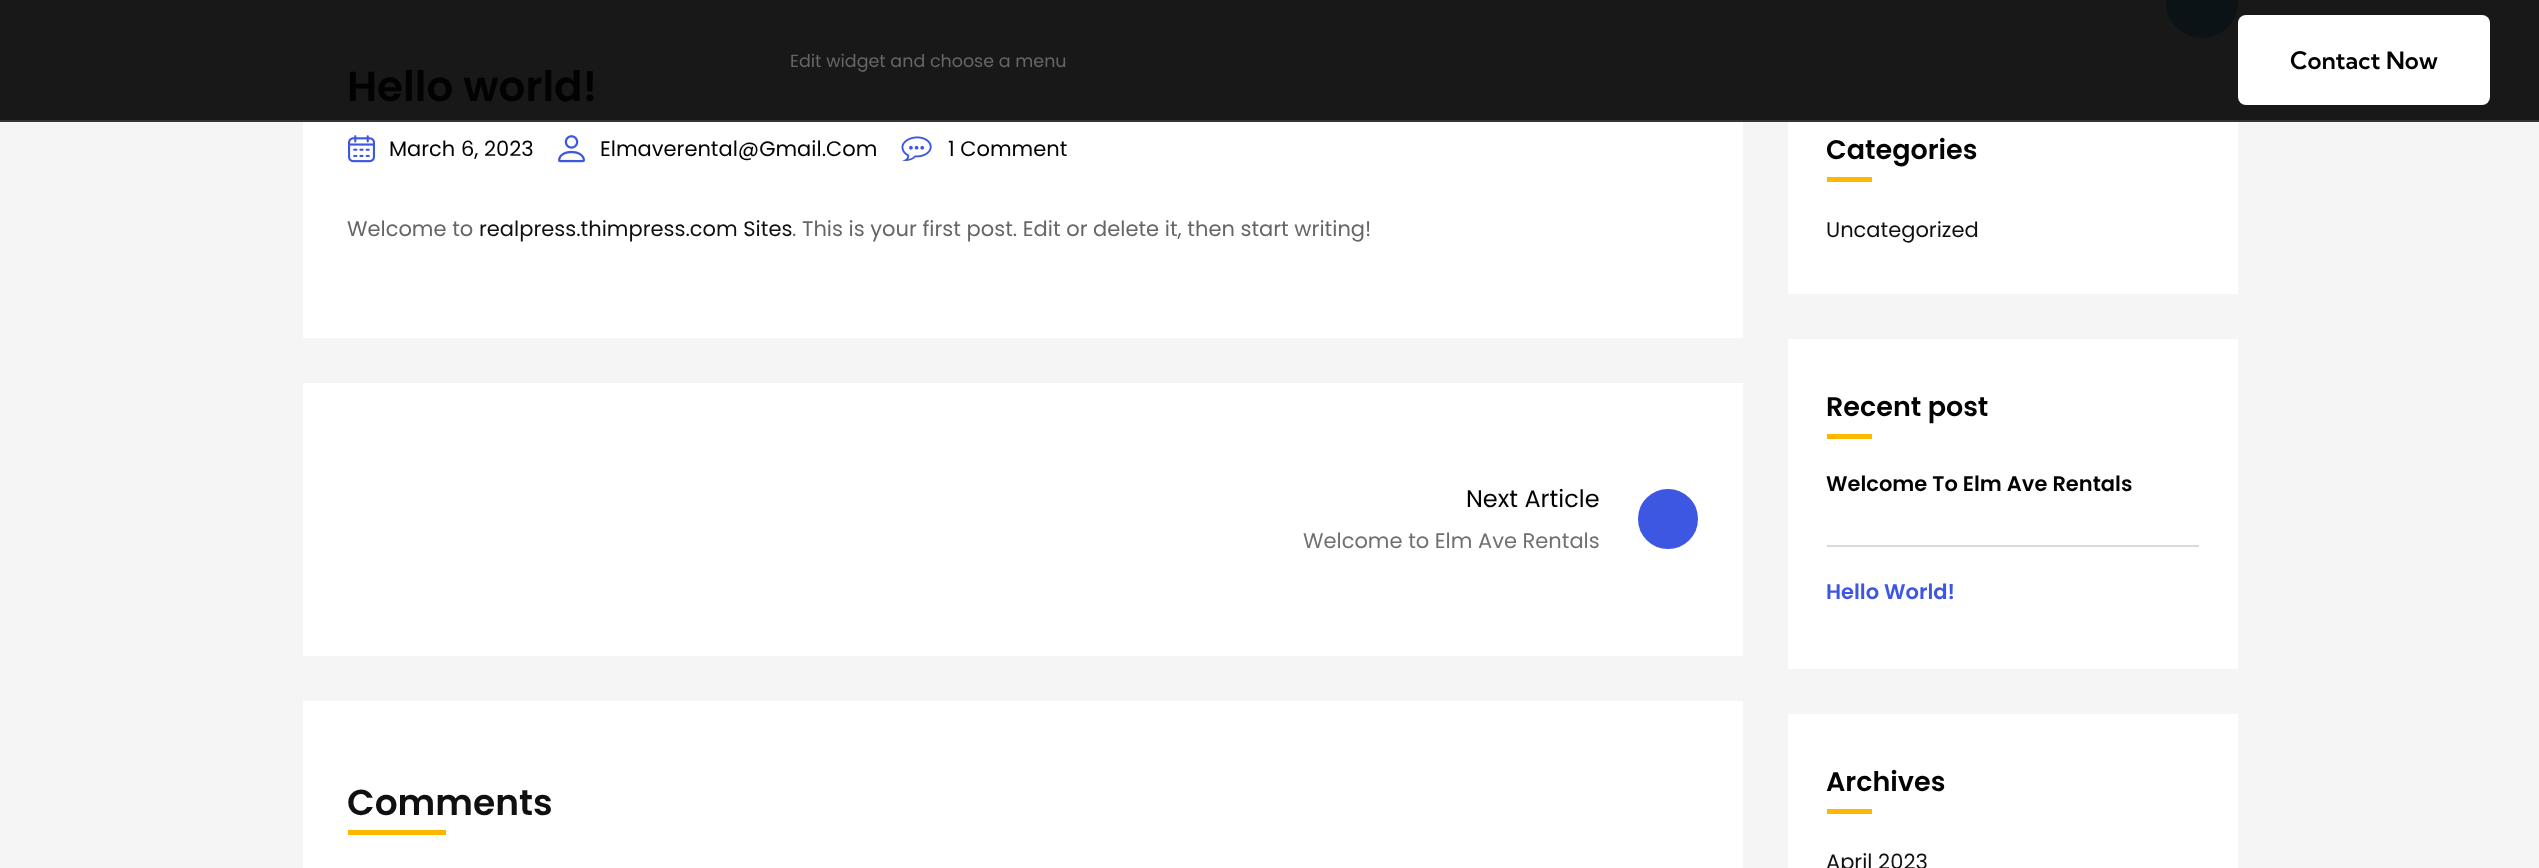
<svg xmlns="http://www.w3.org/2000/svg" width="2539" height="868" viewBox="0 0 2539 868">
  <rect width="100%" height="100%" fill="#f5f5f5"/>
  <rect x="0" y="0" width="2539" height="120" fill="#181818"/>
  <rect x="0" y="120" width="2539" height="2" fill="#353535"/>
  <text x="790" y="67" font-family="Poppins" font-size="17.5" fill="#666666">Edit widget and choose a menu</text>
  <rect x="2238" y="15" width="252" height="90" rx="8" fill="#ffffff"/>
  <text x="2290" y="69" font-family="Kumbh Sans" font-size="24" font-weight="600" fill="#020202">Contact Now</text>
  <rect x="303" y="122" width="1440" height="216" fill="#ffffff"/>
  <text x="347" y="101" font-family="Poppins" font-size="42" font-weight="600" fill="#020202">Hello world!</text>
  <image x="348" y="135" width="27" height="28" href="img1.png"/>
  <text x="389" y="156" font-family="Poppins" font-size="21" fill="#020202">March 6, 2023</text>
  <image x="558" y="135" width="27" height="28" href="img2.png"/>
  <text x="600" y="156" font-family="Poppins" font-size="21" fill="#020202">Elmaverental@Gmail.Com</text>
  <image x="901" y="136" width="31" height="25" href="img3.png"/>
  <text x="948" y="156" font-family="Poppins" font-size="21" fill="#020202">1 Comment</text>
  <text x="347" y="236" font-family="Poppins" font-size="21" fill="#666666">Welcome to</text>
  <text x="479" y="236" font-family="Poppins" font-size="21" fill="#101010">realpress.thimpress.com Sites</text>
  <text x="792" y="236" font-family="Poppins" font-size="21" fill="#666666">. This is your first post. Edit or delete it, then start writing!</text>
  <rect x="303" y="383" width="1440" height="273" fill="#ffffff"/>
  <text x="1466" y="507" font-family="Poppins" font-size="24" fill="#020202">Next Article</text>
  <circle cx="1668" cy="519" r="29" fill="#3e57e3" stroke="#3e57e3" stroke-width="2"/>
  <text x="1303" y="548" font-family="Poppins" font-size="21" fill="#707070">Welcome to Elm Ave Rentals</text>
  <rect x="303" y="701" width="1440" height="167" fill="#ffffff"/>
  <text x="347" y="815" font-family="Poppins" font-size="36" font-weight="600" fill="#101010">Comments</text>
  <rect x="348" y="830" width="98" height="5" fill="#ffb800"/>
  <circle cx="2202" cy="2" r="36" fill="#0b1317"/>
  <rect x="1788" y="122" width="450" height="172" fill="#ffffff"/>
  <text x="1826" y="159" font-family="Poppins" font-size="27" font-weight="600" fill="#020202">Categories</text>
  <rect x="1827" y="177" width="45" height="5" fill="#ffb800"/>
  <text x="1826" y="237" font-family="Poppins" font-size="21" fill="#101010">Uncategorized</text>
  <rect x="1788" y="339" width="450" height="330" fill="#ffffff"/>
  <text x="1826" y="416" font-family="Poppins" font-size="27" font-weight="600" fill="#020202">Recent post</text>
  <rect x="1827" y="434" width="45" height="5" fill="#ffb800"/>
  <rect x="1827" y="545" width="372" height="2" fill="#d9d9d9"/>
  <text x="1826" y="491" font-family="Poppins" font-size="21" font-weight="600" fill="#020202">Welcome To Elm Ave Rentals</text>
  <text x="1826" y="599" font-family="Poppins" font-size="21" font-weight="600" fill="#3e57e3">Hello World!</text>
  <rect x="1788" y="714" width="450" height="154" fill="#ffffff"/>
  <text x="1826" y="791" font-family="Poppins" font-size="27" font-weight="600" fill="#020202">Archives</text>
  <rect x="1827" y="809" width="45" height="5" fill="#ffb800"/>
  <text x="1826" y="869" font-family="Poppins" font-size="21" fill="#101010">April 2023</text>
</svg>
